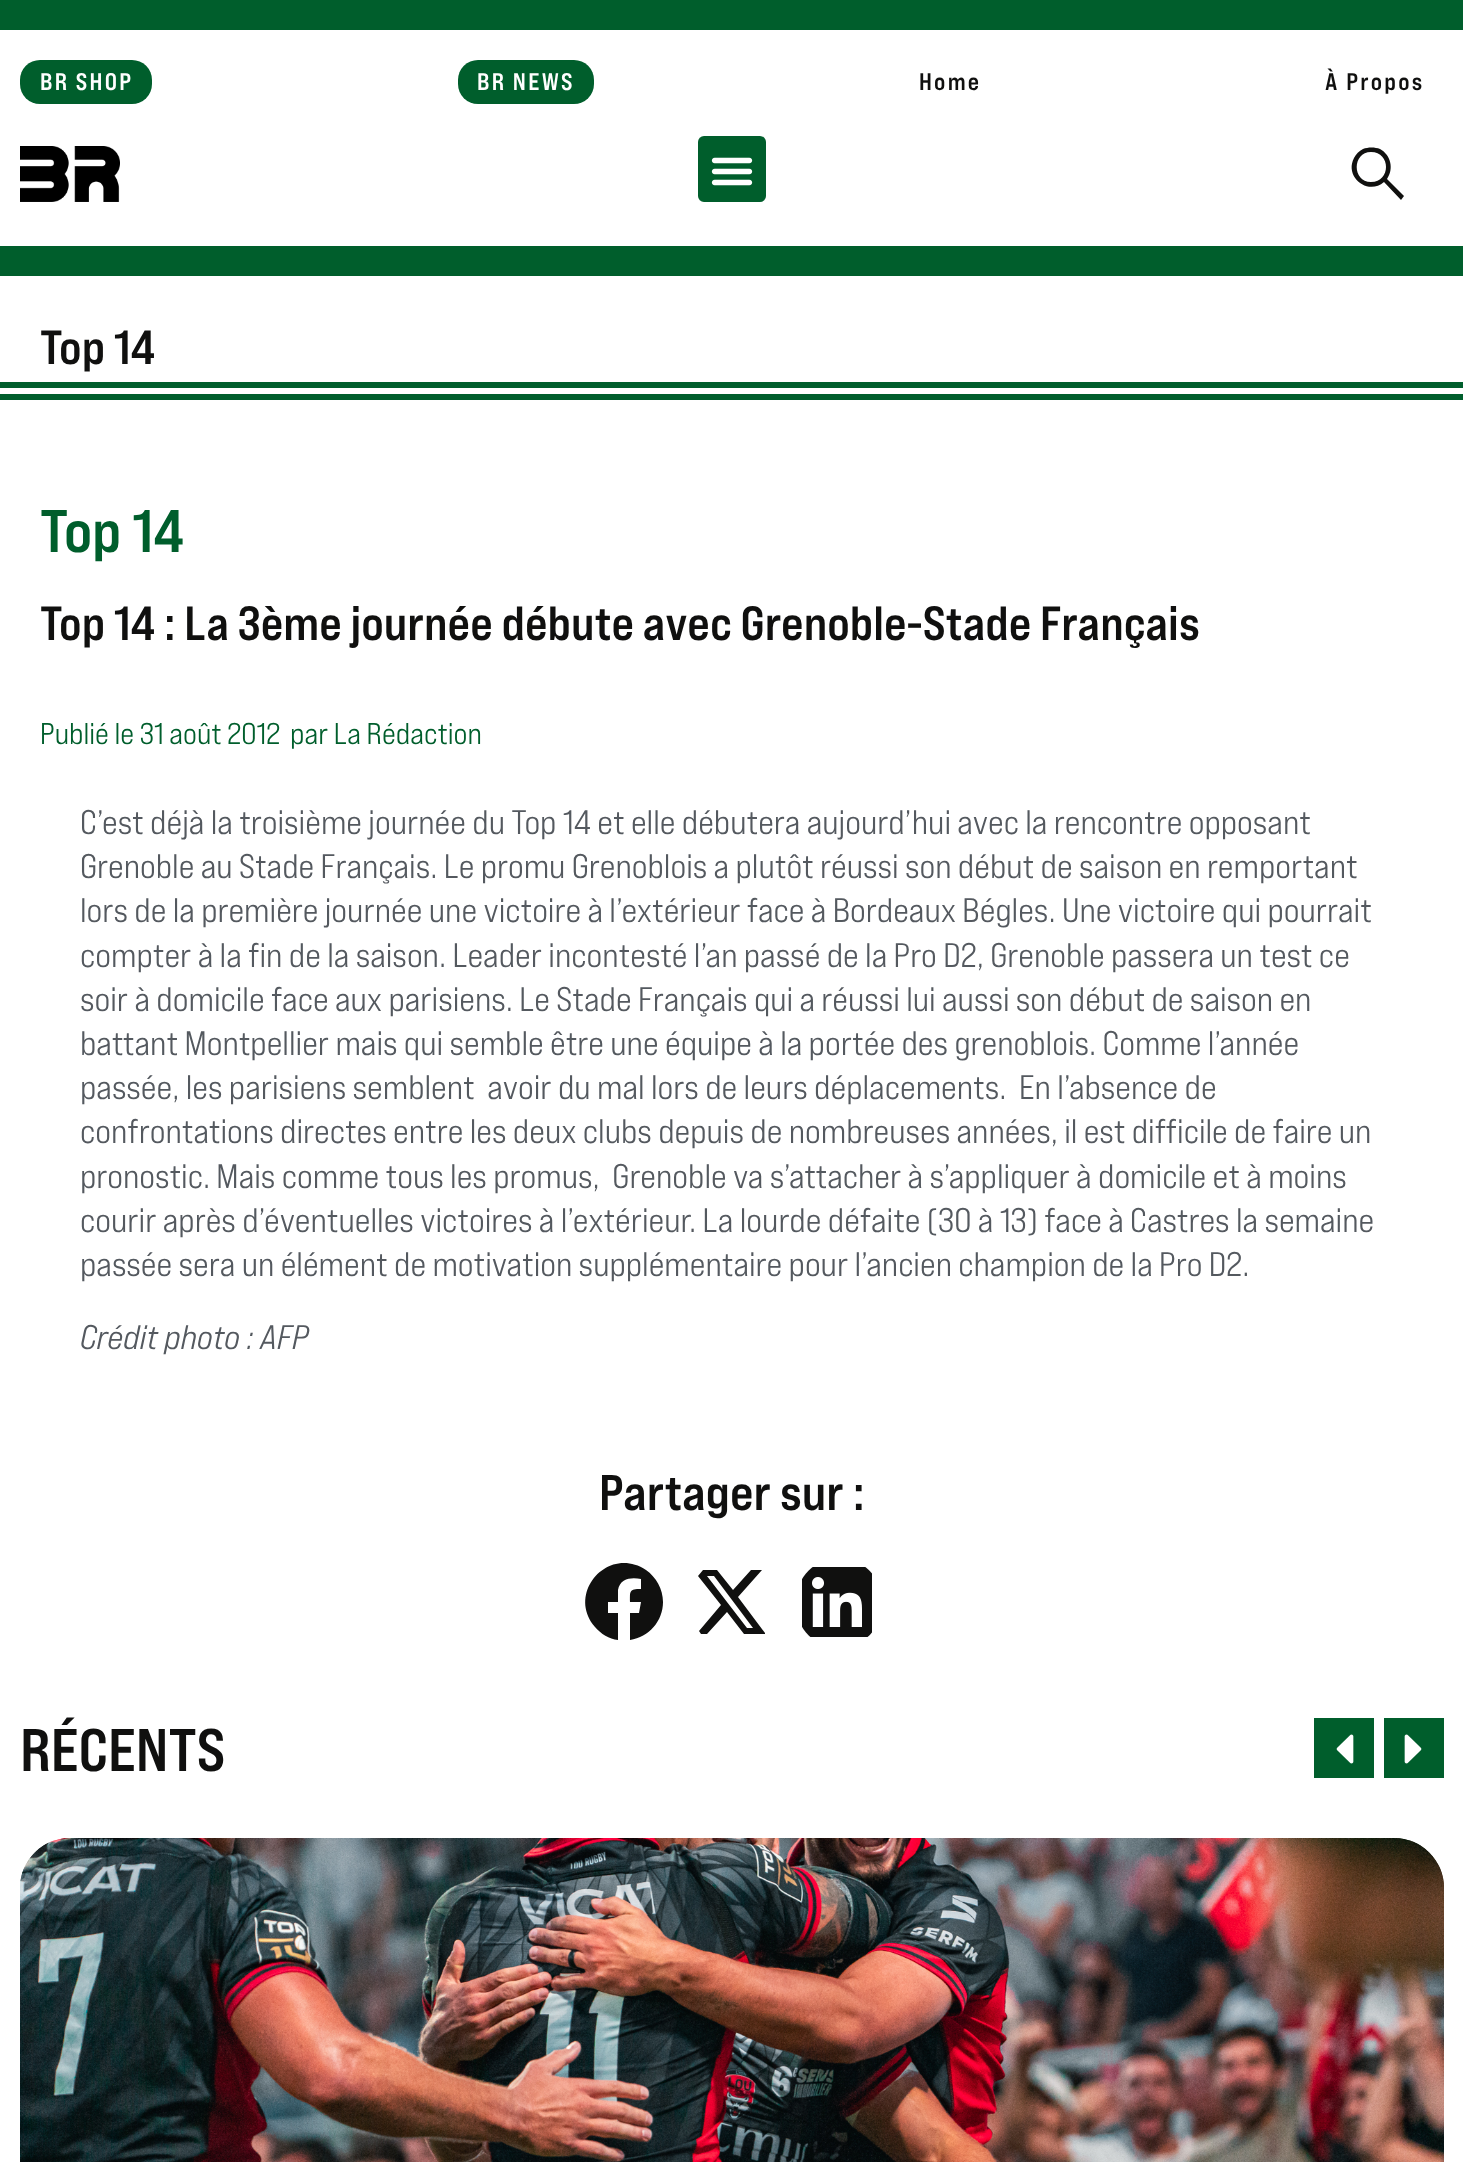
<svg xmlns="http://www.w3.org/2000/svg" width="1463" height="2162" viewBox="0 0 1463 2162">
  <rect width="100%" height="100%" fill="#ffffff"/>
  <rect x="0" y="0" width="1463" height="30" fill="#005e2c"/>
  <rect x="0" y="246" width="1463" height="30" fill="#005e2c"/>
  <rect x="20" y="60" width="132" height="44" rx="20" fill="#005e2c"/>
  <text x="40" y="90" font-family="Bebas Neue" font-size="24" font-weight="bold" letter-spacing="2.25" fill="#ffffff">BR SHOP</text>
  <rect x="458" y="60" width="136" height="44" rx="20" fill="#005e2c"/>
  <text x="477" y="90" font-family="Bebas Neue" font-size="24" font-weight="bold" letter-spacing="2.25" fill="#ffffff">BR NEWS</text>
  <text x="919" y="90" font-family="Bebas Neue" font-size="24" font-weight="bold" letter-spacing="2.25" fill="#10100f">Home</text>
  <text x="1325" y="90" font-family="Bebas Neue" font-size="24" font-weight="bold" letter-spacing="2.25" fill="#10100f">À Propos</text>
  <image x="20" y="146" width="100" height="56" href="img1.png"/>
  <path d="M1404 196L1401 200L1384 182C1368 196 1344 177 1354 158C1356 154 1359 151 1363 149C1368 147 1375 147 1380 149C1391 155 1394 169 1387 179ZM1371 182C1391 182 1391 152 1371 152C1352 152 1352 182 1371 182Z" fill="#10100f"/>
  <rect x="698" y="136" width="68" height="66" rx="6" fill="#005e2c"/>
  <image x="711" y="157" width="42" height="29" href="img2.png"/>
  <rect x="0" y="382" width="1463" height="6" fill="#005e2c"/>
  <rect x="0" y="394" width="1463" height="6" fill="#005e2c"/>
  <text x="40" y="364" font-family="Bebas Neue" font-size="48" font-weight="bold" fill="#10100f">Top 14</text>
  <text x="40" y="552" font-family="Bebas Neue" font-size="60" font-weight="bold" fill="#005e2c">Top 14</text>
  <text x="40" y="640" font-family="Bebas Neue" font-size="48" font-weight="bold" fill="#10100f">Top 14 : La 3ème journée débute avec Grenoble-Stade Français</text>
  <text x="40" y="744" font-family="Bebas Neue" font-size="30" fill="#005e2c">Publié le 31 août 2012</text>
  <text x="290" y="744" font-family="Bebas Neue" font-size="30" fill="#005e2c">par La Rédaction</text>
  <text x="80" y="834" font-family="Bebas Neue" font-size="34" fill="#54595f">C’est déjà la troisième journée du Top 14 et elle débutera aujourd’hui avec la rencontre opposant</text>
  <text x="80" y="878" font-family="Bebas Neue" font-size="34" fill="#54595f">Grenoble au Stade Français. Le promu Grenoblois a plutôt réussi son début de saison en remportant</text>
  <text x="80" y="922" font-family="Bebas Neue" font-size="34" fill="#54595f">lors de la première journée une victoire à l’extérieur face à Bordeaux Bégles. Une victoire qui pourrait</text>
  <text x="80" y="967" font-family="Bebas Neue" font-size="34" fill="#54595f">compter à la fin de la saison. Leader incontesté l’an passé de la Pro D2, Grenoble passera un test ce</text>
  <text x="80" y="1011" font-family="Bebas Neue" font-size="34" fill="#54595f">soir à domicile face aux parisiens. Le Stade Français qui a réussi lui aussi son début de saison en</text>
  <text x="80" y="1055" font-family="Bebas Neue" font-size="34" fill="#54595f">battant Montpellier mais qui semble être une équipe à la portée des grenoblois. Comme l’année</text>
  <text x="80" y="1099" font-family="Bebas Neue" font-size="34" fill="#54595f" xml:space="preserve">passée, les parisiens semblent  avoir du mal lors de leurs déplacements.  En l’absence de</text>
  <text x="80" y="1143" font-family="Bebas Neue" font-size="34" fill="#54595f">confrontations directes entre les deux clubs depuis de nombreuses années, il est difficile de faire un</text>
  <text x="80" y="1188" font-family="Bebas Neue" font-size="34" fill="#54595f" xml:space="preserve">pronostic. Mais comme tous les promus,  Grenoble va s’attacher à s’appliquer à domicile et à moins</text>
  <text x="80" y="1232" font-family="Bebas Neue" font-size="34" fill="#54595f">courir après d’éventuelles victoires à l’extérieur. La lourde défaite (30 à 13) face à Castres la semaine</text>
  <text x="80" y="1276" font-family="Bebas Neue" font-size="34" fill="#54595f">passée sera un élément de motivation supplémentaire pour l’ancien champion de la Pro D2.</text>
  <text x="80" y="1349" font-family="Bebas Neue" font-size="34" font-style="italic" fill="#54595f">Crédit photo : AFP</text>
  <text x="599" y="1510" font-family="Bebas Neue" font-size="50" font-weight="bold" fill="#10100f">Partager sur :</text>
  <path d="M663 1602C663 1621 649 1637 630 1640V1613H639L641 1602H630C630 1591 629 1589 641 1589V1579C632 1577 620 1578 618 1590V1602H608V1613H618V1640C609 1639 601 1634 595 1627C566 1593 608 1545 646 1570C656 1577 663 1589 663 1602Z" fill="#10100f"/>
  <path d="M751 1570H762L738 1597L765 1633V1634H744L727 1612L707 1634H701L699 1631L721 1605L698 1576L703 1570H717L733 1590ZM747 1628L707 1576H714L753 1628Z" fill="#10100f" fill-rule="evenodd"/>
  <image x="802" y="1567" width="70" height="70" href="img3.png"/>
  <text x="20" y="1771" font-family="Bebas Neue" font-size="60" font-weight="bold" fill="#10100f">RÉCENTS</text>
  <rect x="1314" y="1718" width="60" height="60" fill="#005e2c"/>
  <image x="1336" y="1734" width="18" height="30" href="img4.png"/>
  <rect x="1384" y="1718" width="60" height="60" fill="#005e2c"/>
  <image x="1404" y="1734" width="18" height="30" href="img5.png"/>
  <image x="20" y="1838" width="1424" height="324" href="img6.png"/>
  <image x="20" y="1838" width="1424" height="50" href="img7.png"/>
</svg>
